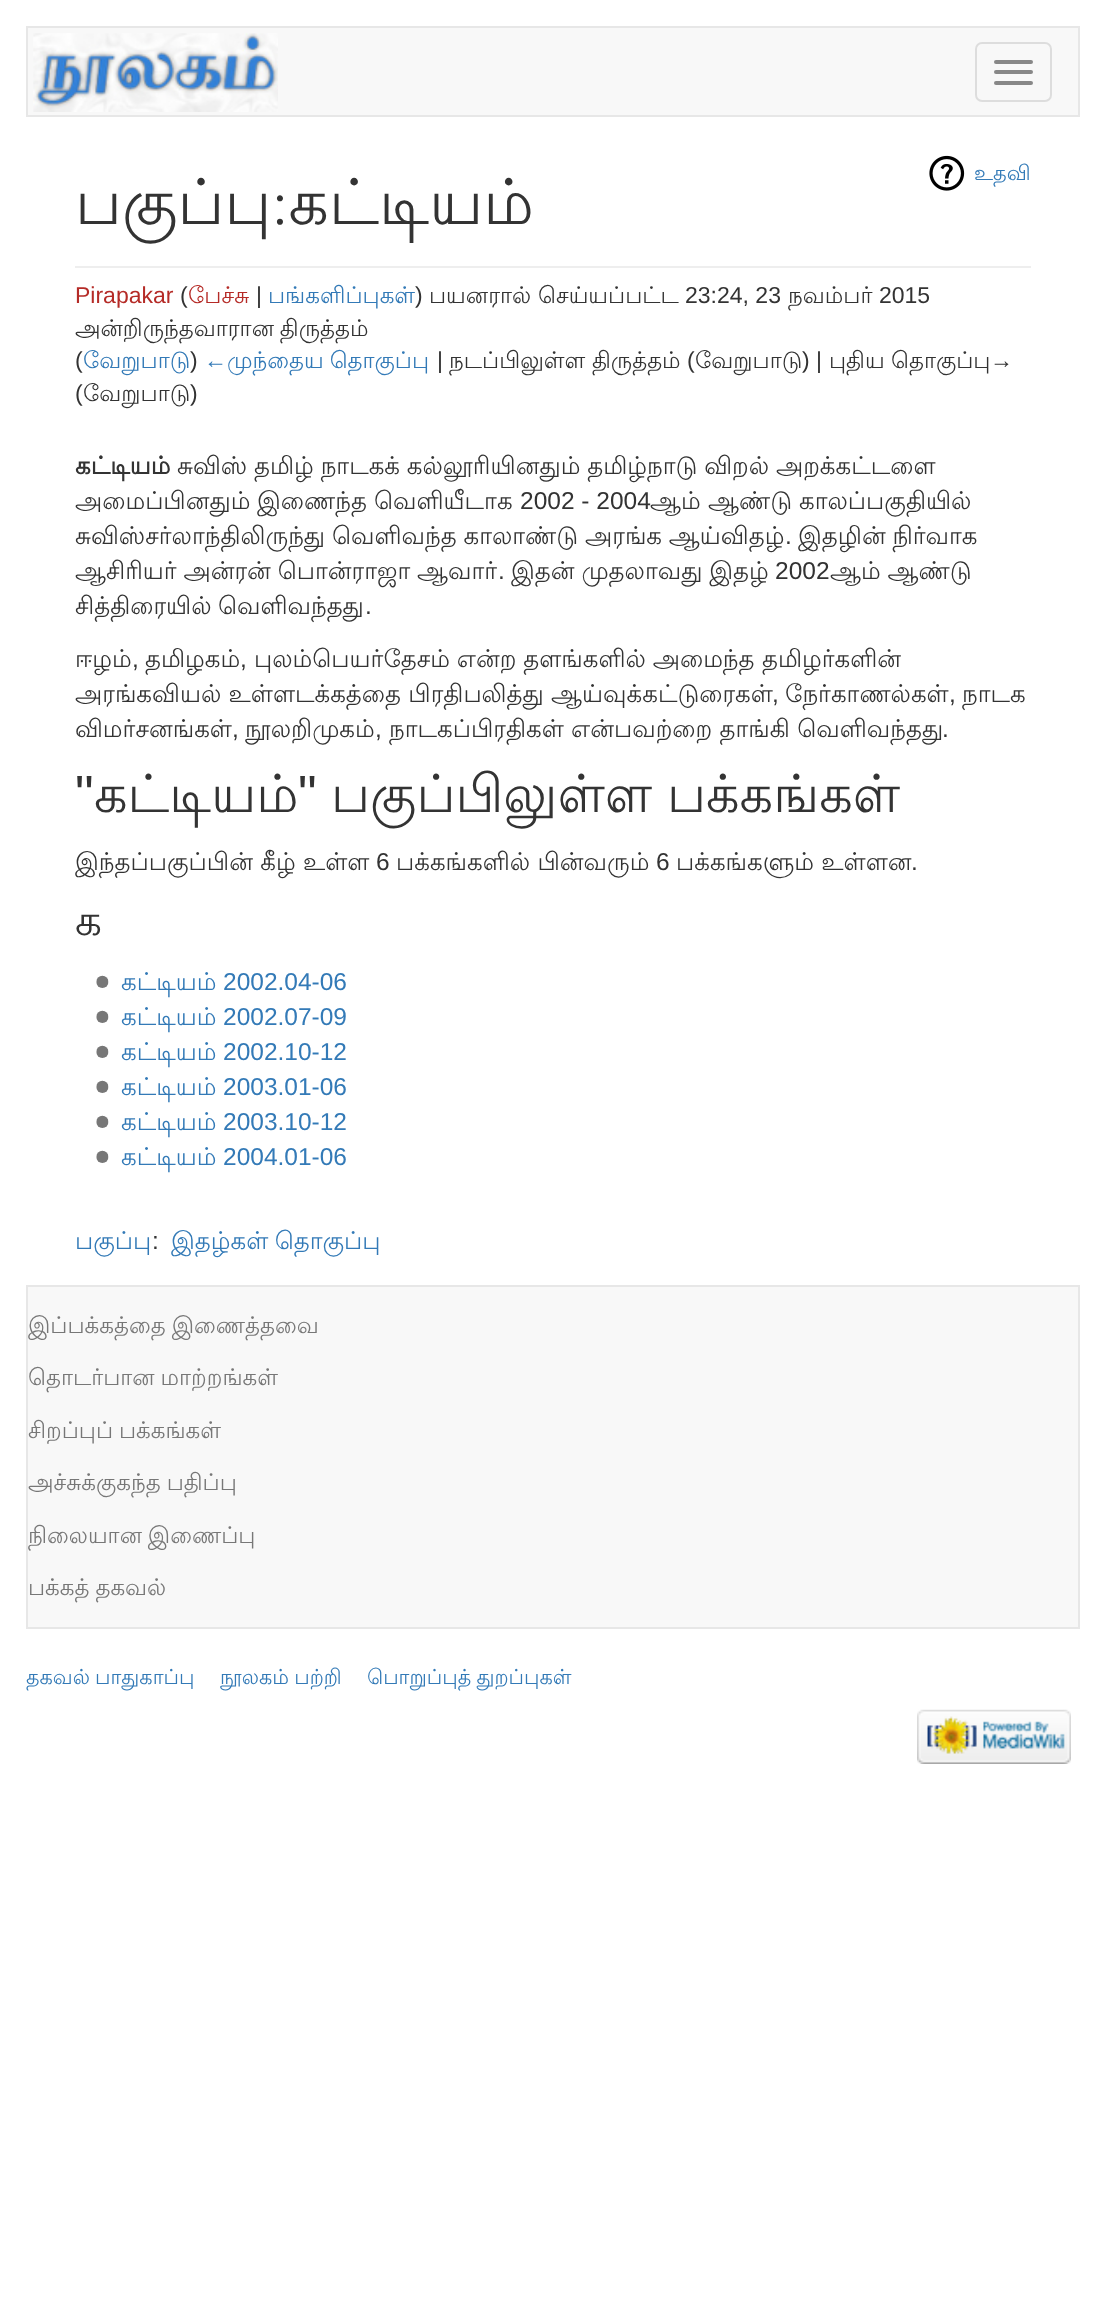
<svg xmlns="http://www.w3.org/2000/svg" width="1105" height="2317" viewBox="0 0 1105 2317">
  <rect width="100%" height="100%" fill="#ffffff"/>
  <rect x="27" y="27" width="1052" height="89" fill="#f8f8f8" stroke="#e7e7e7" stroke-width="2"/>
  <image x="33" y="33" width="245" height="79" href="img1.png"/>
  <rect x="976" y="43" width="75" height="58" rx="6" fill="none" stroke="#dddddd" stroke-width="2"/>
  <rect x="994" y="60" width="39" height="4" rx="2" fill="#888888"/>
  <rect x="994" y="70" width="39" height="4" rx="2" fill="#888888"/>
  <rect x="994" y="81" width="39" height="4" rx="2" fill="#888888"/>
  <image x="929" y="155" width="36" height="36" href="img2.png"/>
  <text x="974" y="180" font-family="Lohit Tamil" font-size="21" fill="#337ab7">உதவி</text>
  <rect x="75" y="266" width="956" height="2" fill="#eeeeee"/>
  <text x="75" y="224" font-family="Lohit Tamil" font-size="63" fill="#333333">பகுப்பு:கட்டியம்</text>
  <text x="75" y="303" font-family="Liberation Sans" font-size="23" fill="#b52b27">Pirapakar</text>
  <text x="180" y="303" font-family="Liberation Sans" font-size="23" fill="#333333">(</text>
  <text x="188" y="303" font-family="Lohit Tamil" font-size="23" fill="#b52b27">பேச்சு</text>
  <text x="256" y="303" font-family="Liberation Sans" font-size="23" fill="#333333">|</text>
  <text x="268" y="303" font-family="Lohit Tamil" font-size="23" fill="#337ab7">பங்களிப்புகள்</text>
  <text x="415" y="303" font-family="Liberation Sans" font-size="23" fill="#333333">)</text>
  <text x="429" y="303" font-family="Lohit Tamil" font-size="23" fill="#333333">பயனரால்</text>
  <text x="538" y="303" font-family="Lohit Tamil" font-size="23" fill="#333333">செய்யப்பட்ட</text>
  <text x="685" y="303" font-family="Liberation Sans" font-size="23" fill="#333333">23:24, 23</text>
  <text x="788" y="303" font-family="Lohit Tamil" font-size="23" fill="#333333">நவம்பர்</text>
  <text x="879" y="303" font-family="Liberation Sans" font-size="23" fill="#333333">2015</text>
  <text x="75" y="336" word-spacing="-1" font-family="Lohit Tamil" font-size="23" fill="#333333">அன்றிருந்தவாரான திருத்தம்</text>
  <text x="75" y="368" font-family="Liberation Sans" font-size="23" fill="#333333">(</text>
  <text x="83" y="368" font-family="Lohit Tamil" font-size="23" fill="#337ab7">வேறுபாடு</text>
  <text x="190" y="368" font-family="Liberation Sans" font-size="23" fill="#333333">)</text>
  <text x="204" y="368" font-family="Liberation Sans" font-size="23" fill="#337ab7">←</text>
  <text x="227" y="368" word-spacing="-1" font-family="Lohit Tamil" font-size="23" fill="#337ab7">முந்தைய தொகுப்பு</text>
  <text x="437" y="368" font-family="Liberation Sans" font-size="23" fill="#333333">|</text>
  <text x="449" y="368" font-family="Lohit Tamil" font-size="23" fill="#333333">நடப்பிலுள்ள</text>
  <text x="592" y="368" font-family="Lohit Tamil" font-size="23" fill="#333333">திருத்தம்</text>
  <text x="687" y="368" font-family="Liberation Sans" font-size="23" fill="#333333">(</text>
  <text x="695" y="368" font-family="Lohit Tamil" font-size="23" fill="#333333">வேறுபாடு</text>
  <text x="802" y="368" font-family="Liberation Sans" font-size="23" fill="#333333">) |</text>
  <text x="829" y="368" font-family="Lohit Tamil" font-size="23" fill="#333333">புதிய</text>
  <text x="891" y="368" font-family="Lohit Tamil" font-size="23" fill="#333333">தொகுப்பு</text>
  <text x="990" y="368" font-family="Liberation Sans" font-size="23" fill="#333333">→</text>
  <text x="75" y="401" font-family="Liberation Sans" font-size="23" fill="#333333">(</text>
  <text x="83" y="401" font-family="Lohit Tamil" font-size="23" fill="#333333">வேறுபாடு</text>
  <text x="190" y="401" font-family="Liberation Sans" font-size="23" fill="#333333">)</text>
  <text x="75" y="474" font-family="Lohit Tamil" font-size="24.5" font-weight="bold" fill="#333333">கட்டியம்</text>
  <text x="177" y="474" word-spacing="-0.5" font-family="Lohit Tamil" font-size="24.5" fill="#333333">சுவிஸ் தமிழ் நாடகக் கல்லூரியினதும் தமிழ்நாடு விறல் அறக்கட்டளை</text>
  <text x="75" y="509" font-family="Lohit Tamil" font-size="24.5" fill="#333333">அமைப்பினதும்</text>
  <text x="257" y="509" font-family="Lohit Tamil" font-size="24.5" fill="#333333">இணைந்த</text>
  <text x="374" y="509" font-family="Lohit Tamil" font-size="24.5" fill="#333333">வெளியீடாக</text>
  <text x="520" y="509" font-family="Liberation Sans" font-size="24.5" fill="#333333">2002 - 2004</text>
  <text x="650" y="509" font-family="Lohit Tamil" font-size="24.5" fill="#333333">ஆம்</text>
  <text x="708" y="509" font-family="Lohit Tamil" font-size="24.5" fill="#333333">ஆண்டு</text>
  <text x="799" y="509" font-family="Lohit Tamil" font-size="24.5" fill="#333333">காலப்பகுதியில்</text>
  <text x="75" y="544" word-spacing="-0.5" font-family="Lohit Tamil" font-size="24.5" fill="#333333">சுவிஸ்சர்லாந்திலிருந்து வெளிவந்த காலாண்டு அரங்க ஆய்விதழ்</text>
  <text x="785" y="544" font-family="Liberation Sans" font-size="24.5" fill="#333333">.</text>
  <text x="798" y="544" word-spacing="-0.5" font-family="Lohit Tamil" font-size="24.5" fill="#333333">இதழின் நிர்வாக</text>
  <text x="75" y="579" word-spacing="-0.5" font-family="Lohit Tamil" font-size="24.5" fill="#333333">ஆசிரியர் அன்ரன் பொன்ராஜா ஆவார்</text>
  <text x="498" y="579" font-family="Liberation Sans" font-size="24.5" fill="#333333">.</text>
  <text x="511" y="579" word-spacing="-0.5" font-family="Lohit Tamil" font-size="24.5" fill="#333333">இதன் முதலாவது இதழ்</text>
  <text x="775" y="579" font-family="Liberation Sans" font-size="24.5" fill="#333333">2002</text>
  <text x="830" y="579" word-spacing="-0.5" font-family="Lohit Tamil" font-size="24.5" fill="#333333">ஆம் ஆண்டு</text>
  <text x="75" y="614" word-spacing="-1" font-family="Lohit Tamil" font-size="24.5" fill="#333333">சித்திரையில் வெளிவந்தது</text>
  <text x="365" y="614" font-family="Liberation Sans" font-size="24.5" fill="#333333">.</text>
  <text x="75" y="667" font-family="Lohit Tamil" font-size="24.5" fill="#333333">ஈழம்</text>
  <text x="132" y="667" font-family="Liberation Sans" font-size="24.5" fill="#333333">,</text>
  <text x="145" y="667" font-family="Lohit Tamil" font-size="24.5" fill="#333333">தமிழகம்</text>
  <text x="240" y="667" font-family="Liberation Sans" font-size="24.5" fill="#333333">,</text>
  <text x="254" y="667" word-spacing="-0.5" font-family="Lohit Tamil" font-size="24.5" fill="#333333">புலம்பெயர்தேசம் என்ற தளங்களில் அமைந்த</text>
  <text x="762" y="667" font-family="Lohit Tamil" font-size="24.5" fill="#333333">தமிழர்களின்</text>
  <text x="75" y="702" font-family="Lohit Tamil" font-size="24.5" fill="#333333">அரங்கவியல் உள்ளடக்கத்தை பிரதிபலித்து ஆய்வுக்கட்டுரைகள்</text>
  <text x="772" y="702" font-family="Liberation Sans" font-size="24.5" fill="#333333">,</text>
  <text x="785" y="702" font-family="Lohit Tamil" font-size="24.5" fill="#333333">நேர்காணல்கள்</text>
  <text x="949" y="702" font-family="Liberation Sans" font-size="24.5" fill="#333333">,</text>
  <text x="962" y="702" font-family="Lohit Tamil" font-size="24.5" fill="#333333">நாடக</text>
  <text x="75" y="737" font-family="Lohit Tamil" font-size="24.5" fill="#333333">விமர்சனங்கள்</text>
  <text x="232" y="737" font-family="Liberation Sans" font-size="24.5" fill="#333333">,</text>
  <text x="245" y="737" font-family="Lohit Tamil" font-size="24.5" fill="#333333">நூலறிமுகம்</text>
  <text x="375" y="737" font-family="Liberation Sans" font-size="24.5" fill="#333333">,</text>
  <text x="389" y="737" font-family="Lohit Tamil" font-size="24.5" fill="#333333">நாடகப்பிரதிகள் என்பவற்றை தாங்கி வெளிவந்தது</text>
  <text x="942" y="737" font-family="Liberation Sans" font-size="24.5" fill="#333333">.</text>
  <text x="75" y="812" font-family="Liberation Sans" font-size="52.5" fill="#333333">"</text>
  <text x="94" y="812" font-family="Lohit Tamil" font-size="52.5" fill="#333333">கட்டியம்</text>
  <text x="298" y="812" font-family="Liberation Sans" font-size="52.5" fill="#333333">"</text>
  <text x="331" y="812" word-spacing="-1" font-family="Lohit Tamil" font-size="52.5" fill="#333333">பகுப்பிலுள்ள பக்கங்கள்</text>
  <text x="75" y="870" font-family="Lohit Tamil" font-size="24.5" fill="#333333">இந்தப்பகுப்பின் கீழ் உள்ள</text>
  <text x="376" y="870" font-family="Liberation Sans" font-size="24.5" fill="#333333">6</text>
  <text x="396" y="870" font-family="Lohit Tamil" font-size="24.5" fill="#333333">பக்கங்களில் பின்வரும்</text>
  <text x="656" y="870" font-family="Liberation Sans" font-size="24.5" fill="#333333">6</text>
  <text x="676" y="870" font-family="Lohit Tamil" font-size="24.5" fill="#333333">பக்கங்களும் உள்ளன</text>
  <text x="911" y="870" font-family="Liberation Sans" font-size="24.5" fill="#333333">.</text>
  <text x="75" y="935" font-family="Lohit Tamil" font-size="42" fill="#333333">க</text>
  <image x="96" y="975" width="13" height="13" href="img3.png"/>
  <text x="121" y="990" font-family="Lohit Tamil" font-size="24.5" fill="#337ab7">கட்டியம்</text>
  <text x="223" y="990" font-family="Liberation Sans" font-size="24.5" fill="#337ab7">2002.04-06</text>
  <image x="96" y="1010" width="13" height="13" href="img3.png"/>
  <text x="121" y="1025" font-family="Lohit Tamil" font-size="24.5" fill="#337ab7">கட்டியம்</text>
  <text x="223" y="1025" font-family="Liberation Sans" font-size="24.5" fill="#337ab7">2002.07-09</text>
  <image x="96" y="1045" width="13" height="13" href="img3.png"/>
  <text x="121" y="1060" font-family="Lohit Tamil" font-size="24.5" fill="#337ab7">கட்டியம்</text>
  <text x="223" y="1060" font-family="Liberation Sans" font-size="24.5" fill="#337ab7">2002.10-12</text>
  <image x="96" y="1080" width="13" height="13" href="img3.png"/>
  <text x="121" y="1095" font-family="Lohit Tamil" font-size="24.5" fill="#337ab7">கட்டியம்</text>
  <text x="223" y="1095" font-family="Liberation Sans" font-size="24.5" fill="#337ab7">2003.01-06</text>
  <image x="96" y="1115" width="13" height="13" href="img3.png"/>
  <text x="121" y="1130" font-family="Lohit Tamil" font-size="24.5" fill="#337ab7">கட்டியம்</text>
  <text x="223" y="1130" font-family="Liberation Sans" font-size="24.5" fill="#337ab7">2003.10-12</text>
  <image x="96" y="1150" width="13" height="13" href="img3.png"/>
  <text x="121" y="1165" font-family="Lohit Tamil" font-size="24.5" fill="#337ab7">கட்டியம்</text>
  <text x="223" y="1165" font-family="Liberation Sans" font-size="24.5" fill="#337ab7">2004.01-06</text>
  <text x="75" y="1249" font-family="Lohit Tamil" font-size="24.5" fill="#337ab7">பகுப்பு</text>
  <text x="152" y="1249" font-family="Liberation Sans" font-size="24.5" fill="#333333">:</text>
  <text x="171" y="1249" word-spacing="-1" font-family="Lohit Tamil" font-size="24.5" fill="#337ab7">இதழ்கள் தொகுப்பு</text>
  <rect x="27" y="1286" width="1052" height="342" fill="#f8f8f8" stroke="#e7e7e7" stroke-width="2"/>
  <text x="28" y="1333" word-spacing="-1" font-family="Lohit Tamil" font-size="23" fill="#777777">இப்பக்கத்தை இணைத்தவை</text>
  <text x="28" y="1385" word-spacing="-1" font-family="Lohit Tamil" font-size="23" fill="#777777">தொடர்பான மாற்றங்கள்</text>
  <text x="28" y="1438" word-spacing="-1" font-family="Lohit Tamil" font-size="23" fill="#777777">சிறப்புப் பக்கங்கள்</text>
  <text x="28" y="1490" word-spacing="-1" font-family="Lohit Tamil" font-size="23" fill="#777777">அச்சுக்குகந்த பதிப்பு</text>
  <text x="28" y="1543" word-spacing="-1" font-family="Lohit Tamil" font-size="23" fill="#777777">நிலையான இணைப்பு</text>
  <text x="28" y="1595" word-spacing="-1" font-family="Lohit Tamil" font-size="23" fill="#777777">பக்கத் தகவல்</text>
  <text x="26" y="1684" word-spacing="-1" font-family="Lohit Tamil" font-size="20.75" fill="#337ab7">தகவல் பாதுகாப்பு</text>
  <text x="220" y="1684" word-spacing="-1" font-family="Lohit Tamil" font-size="20.75" fill="#337ab7">நூலகம் பற்றி</text>
  <text x="367" y="1684" word-spacing="-1" font-family="Lohit Tamil" font-size="20.75" fill="#337ab7">பொறுப்புத் துறப்புகள்</text>
  <image x="917" y="1709" width="154" height="55" href="img4.png"/>
</svg>
